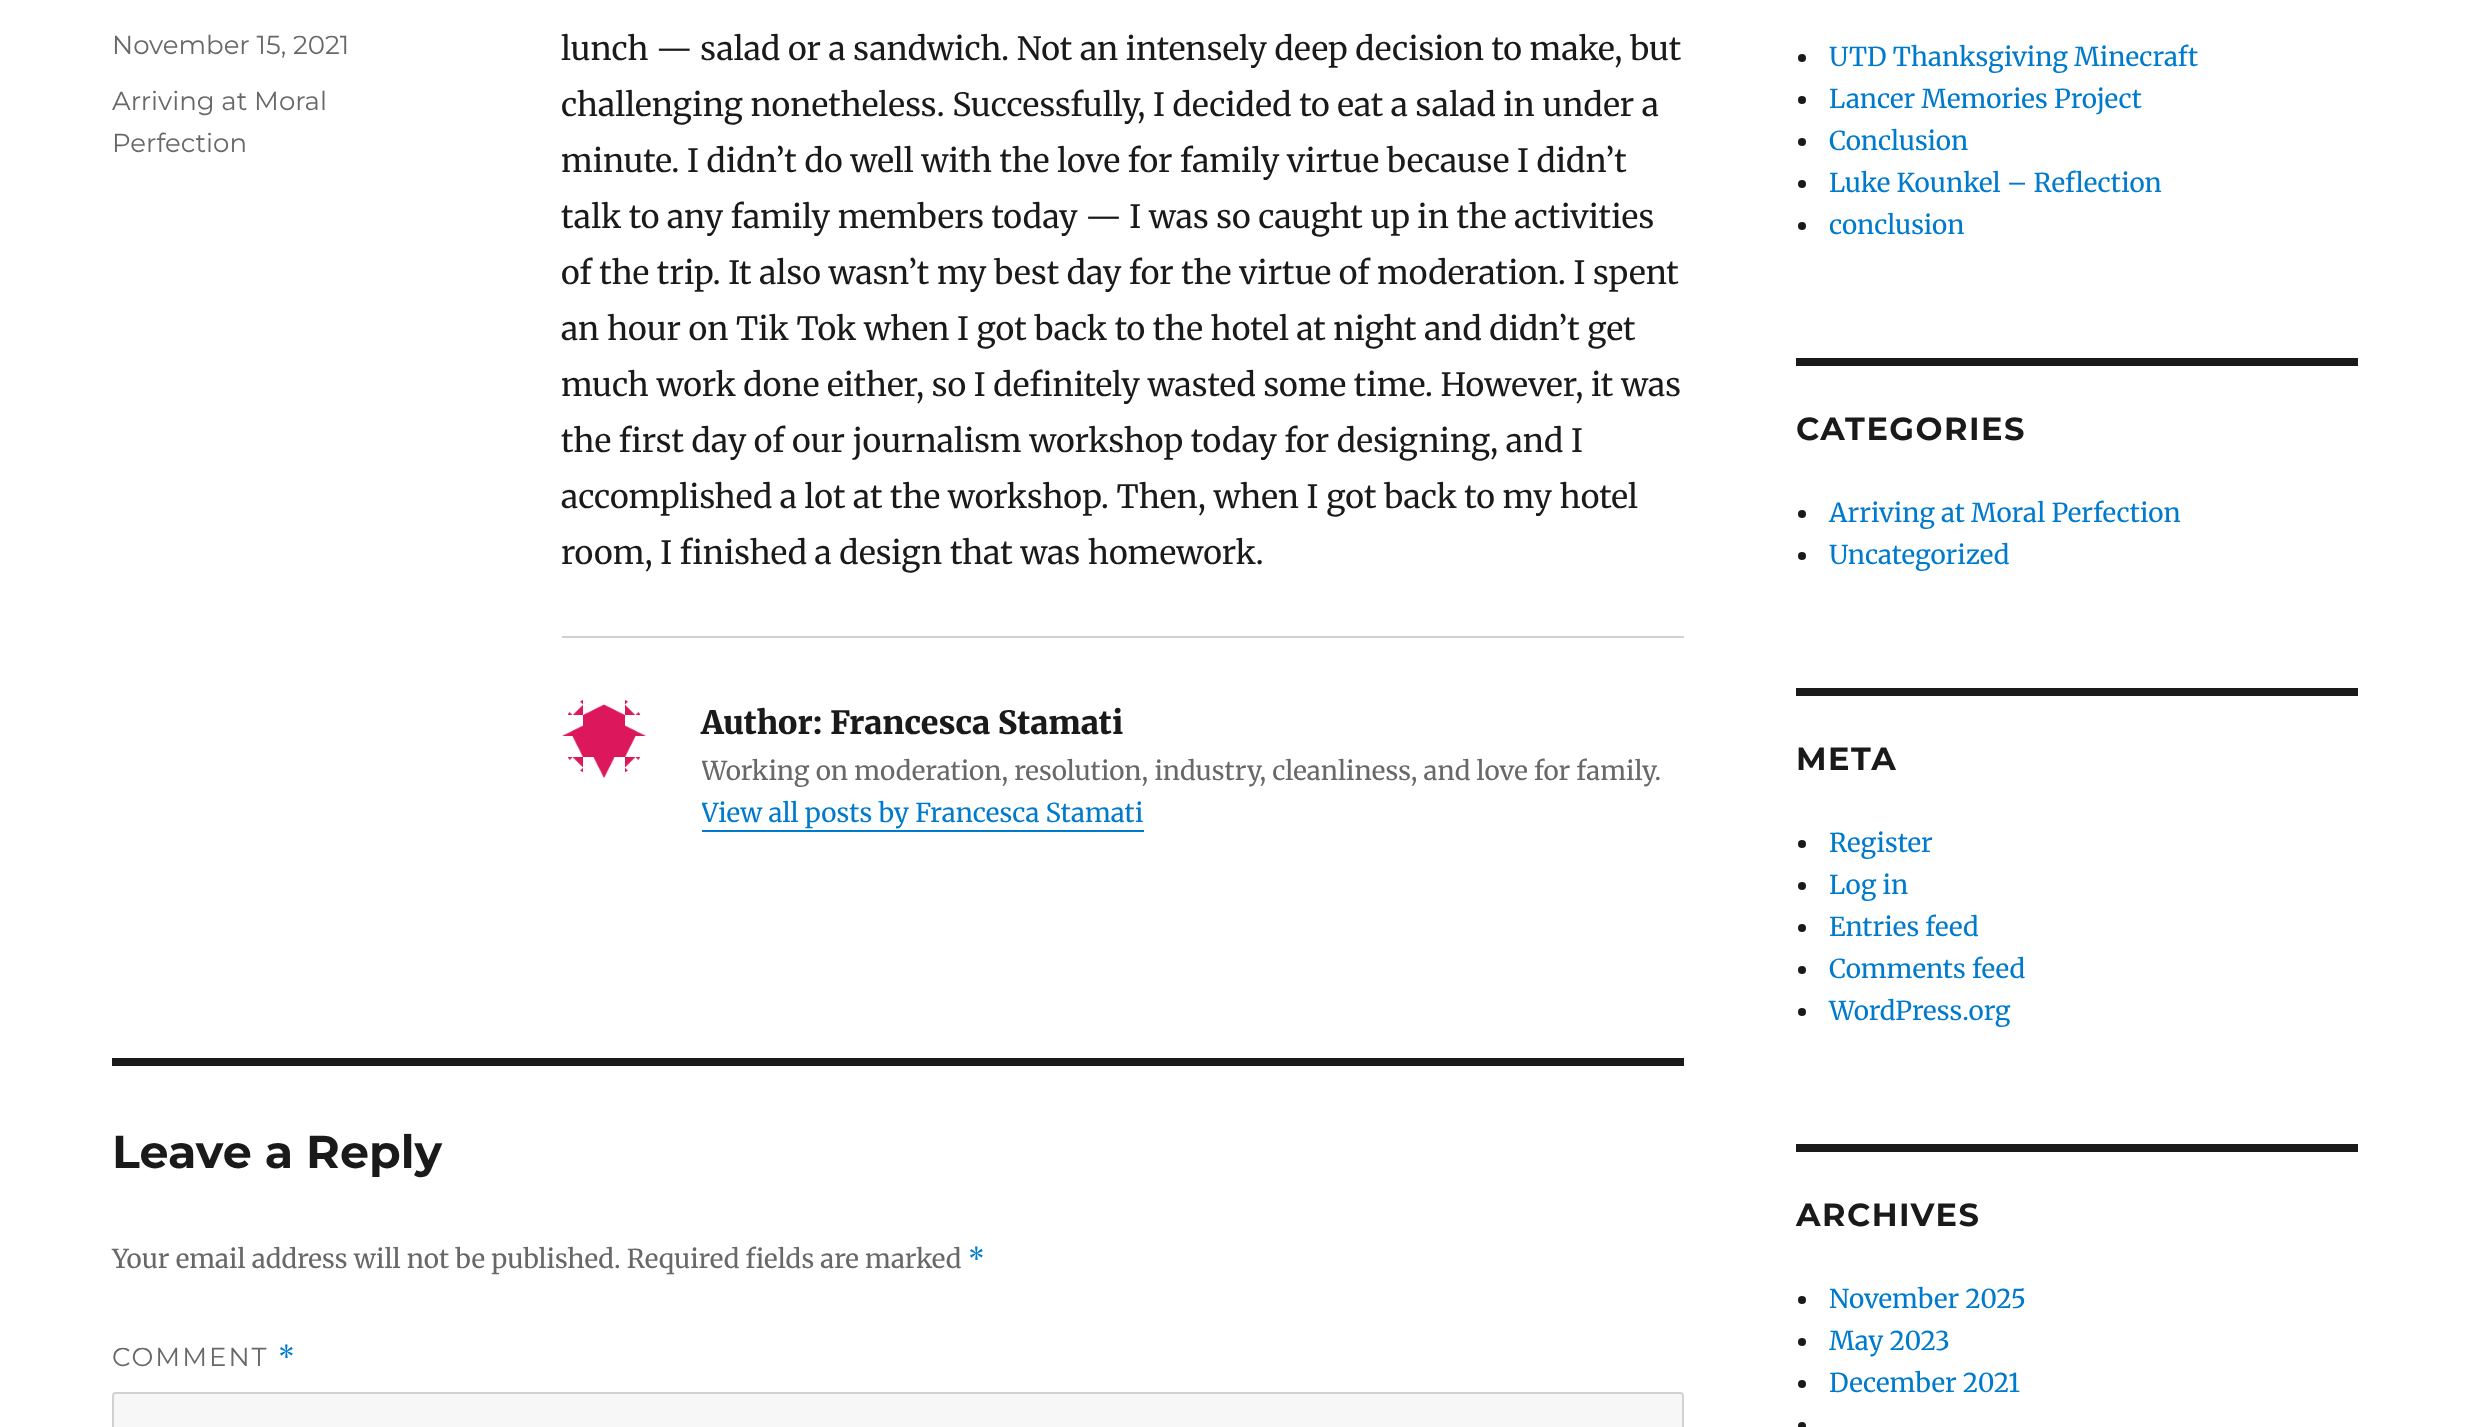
<svg xmlns="http://www.w3.org/2000/svg" width="2469" height="1427" viewBox="0 0 2469 1427">
  <defs>
    <clipPath id="clip1"><rect x="702" y="750" width="982" height="84"/></clipPath>
  </defs>
  <rect width="100%" height="100%" fill="#ffffff"/>
  <text x="112" y="54" font-family="Montserrat" font-size="26" fill="#686868">November 15, 2021</text>
  <text x="112" y="110" font-family="Montserrat" font-size="26" fill="#686868">Arriving at Moral</text>
  <text x="112" y="152" font-family="Montserrat" font-size="26" fill="#686868">Perfection</text>
  <text x="561" y="60" font-family="Merriweather" font-size="32" fill="#1a1a1a">lunch — salad or a sandwich. Not an intensely deep decision to make, but</text>
  <text x="561" y="116" font-family="Merriweather" font-size="32" fill="#1a1a1a">challenging nonetheless. Successfully, I decided to eat a salad in under a</text>
  <text x="561" y="172" font-family="Merriweather" font-size="32" fill="#1a1a1a">minute. I didn’t do well with the love for family virtue because I didn’t</text>
  <text x="561" y="228" font-family="Merriweather" font-size="32" fill="#1a1a1a">talk to any family members today — I was so caught up in the activities</text>
  <text x="561" y="284" font-family="Merriweather" font-size="32" fill="#1a1a1a">of the trip. It also wasn’t my best day for the virtue of moderation. I spent</text>
  <text x="561" y="340" font-family="Merriweather" font-size="32" fill="#1a1a1a">an hour on Tik Tok when I got back to the hotel at night and didn’t get</text>
  <text x="561" y="396" font-family="Merriweather" font-size="32" fill="#1a1a1a">much work done either, so I definitely wasted some time. However, it was</text>
  <text x="561" y="452" font-family="Merriweather" font-size="32" fill="#1a1a1a">the first day of our journalism workshop today for designing, and I</text>
  <text x="561" y="508" font-family="Merriweather" font-size="32" fill="#1a1a1a">accomplished a lot at the workshop. Then, when I got back to my hotel</text>
  <text x="561" y="564" font-family="Merriweather" font-size="32" fill="#1a1a1a">room, I finished a design that was homework.</text>
  <rect x="562" y="636" width="1122" height="2" fill="#d1d1d1"/>
  <image x="562" y="700" width="84" height="78" href="img1.png"/>
  <text x="701" y="734" font-family="Merriweather" font-size="32" font-weight="900" fill="#1a1a1a">Author: Francesca Stamati</text>
  <g clip-path="url(#clip1)">
    <text x="701" y="780" font-family="Merriweather" font-size="26" fill="#686868">Working on moderation, resolution, industry, cleanliness, and love for family.</text>
    <text x="701" y="822" font-family="Merriweather" font-size="26" fill="#007acc">View all posts by Francesca Stamati</text>
  </g>
  <rect x="702" y="830" width="442" height="2" fill="#007acc"/>
  <rect x="112" y="1058" width="1572" height="8" fill="#1a1a1a"/>
  <text x="112" y="1168" font-family="Montserrat" font-size="46" font-weight="bold" fill="#1a1a1a">Leave a Reply</text>
  <text x="112" y="1268" font-family="Merriweather" font-size="26" fill="#686868">Your email address will not be published. Required fields are marked</text>
  <text x="968" y="1268" font-family="Merriweather" font-size="26" fill="#007acc">*</text>
  <text x="112" y="1366" font-family="Montserrat" font-size="26" letter-spacing="2" fill="#686868">COMMENT</text>
  <text x="278" y="1366" font-family="Merriweather" font-size="26" letter-spacing="2" fill="#007acc">*</text>
  <rect x="113" y="1393" width="1570" height="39" rx="3" fill="#f7f7f7" stroke="#d1d1d1" stroke-width="2"/>
  <circle cx="1802" cy="58" r="4" fill="#1a1a1a"/>
  <text x="1829" y="66" font-family="Merriweather" font-size="26" fill="#007acc">UTD Thanksgiving Minecraft</text>
  <circle cx="1802" cy="100" r="4" fill="#1a1a1a"/>
  <text x="1829" y="108" font-family="Merriweather" font-size="26" fill="#007acc">Lancer Memories Project</text>
  <circle cx="1802" cy="142" r="4" fill="#1a1a1a"/>
  <text x="1829" y="150" font-family="Merriweather" font-size="26" fill="#007acc">Conclusion</text>
  <circle cx="1802" cy="184" r="4" fill="#1a1a1a"/>
  <text x="1829" y="192" font-family="Merriweather" font-size="26" fill="#007acc">Luke Kounkel – Reflection</text>
  <circle cx="1802" cy="226" r="4" fill="#1a1a1a"/>
  <text x="1829" y="234" font-family="Merriweather" font-size="26" fill="#007acc">conclusion</text>
  <rect x="1796" y="358" width="562" height="8" fill="#1a1a1a"/>
  <text x="1796" y="440" font-family="Montserrat" font-size="32" font-weight="bold" letter-spacing="1.5" fill="#1a1a1a">CATEGORIES</text>
  <circle cx="1802" cy="514" r="4" fill="#1a1a1a"/>
  <text x="1829" y="522" font-family="Merriweather" font-size="26" fill="#007acc">Arriving at Moral Perfection</text>
  <circle cx="1802" cy="556" r="4" fill="#1a1a1a"/>
  <text x="1829" y="564" font-family="Merriweather" font-size="26" fill="#007acc">Uncategorized</text>
  <rect x="1796" y="688" width="562" height="8" fill="#1a1a1a"/>
  <text x="1796" y="770" font-family="Montserrat" font-size="32" font-weight="bold" letter-spacing="1.5" fill="#1a1a1a">META</text>
  <circle cx="1802" cy="844" r="4" fill="#1a1a1a"/>
  <text x="1829" y="852" font-family="Merriweather" font-size="26" fill="#007acc">Register</text>
  <circle cx="1802" cy="886" r="4" fill="#1a1a1a"/>
  <text x="1829" y="894" font-family="Merriweather" font-size="26" fill="#007acc">Log in</text>
  <circle cx="1802" cy="928" r="4" fill="#1a1a1a"/>
  <text x="1829" y="936" font-family="Merriweather" font-size="26" fill="#007acc">Entries feed</text>
  <circle cx="1802" cy="970" r="4" fill="#1a1a1a"/>
  <text x="1829" y="978" font-family="Merriweather" font-size="26" fill="#007acc">Comments feed</text>
  <circle cx="1802" cy="1012" r="4" fill="#1a1a1a"/>
  <text x="1829" y="1020" font-family="Merriweather" font-size="26" fill="#007acc">WordPress.org</text>
  <rect x="1796" y="1144" width="562" height="8" fill="#1a1a1a"/>
  <text x="1796" y="1226" font-family="Montserrat" font-size="32" font-weight="bold" letter-spacing="1.5" fill="#1a1a1a">ARCHIVES</text>
  <circle cx="1802" cy="1300" r="4" fill="#1a1a1a"/>
  <text x="1829" y="1308" font-family="Merriweather" font-size="26" fill="#007acc">November 2025</text>
  <circle cx="1802" cy="1342" r="4" fill="#1a1a1a"/>
  <text x="1829" y="1350" font-family="Merriweather" font-size="26" fill="#007acc">May 2023</text>
  <circle cx="1802" cy="1384" r="4" fill="#1a1a1a"/>
  <text x="1829" y="1392" font-family="Merriweather" font-size="26" fill="#007acc">December 2021</text>
  <circle cx="1802" cy="1426" r="4" fill="#1a1a1a"/>
</svg>
